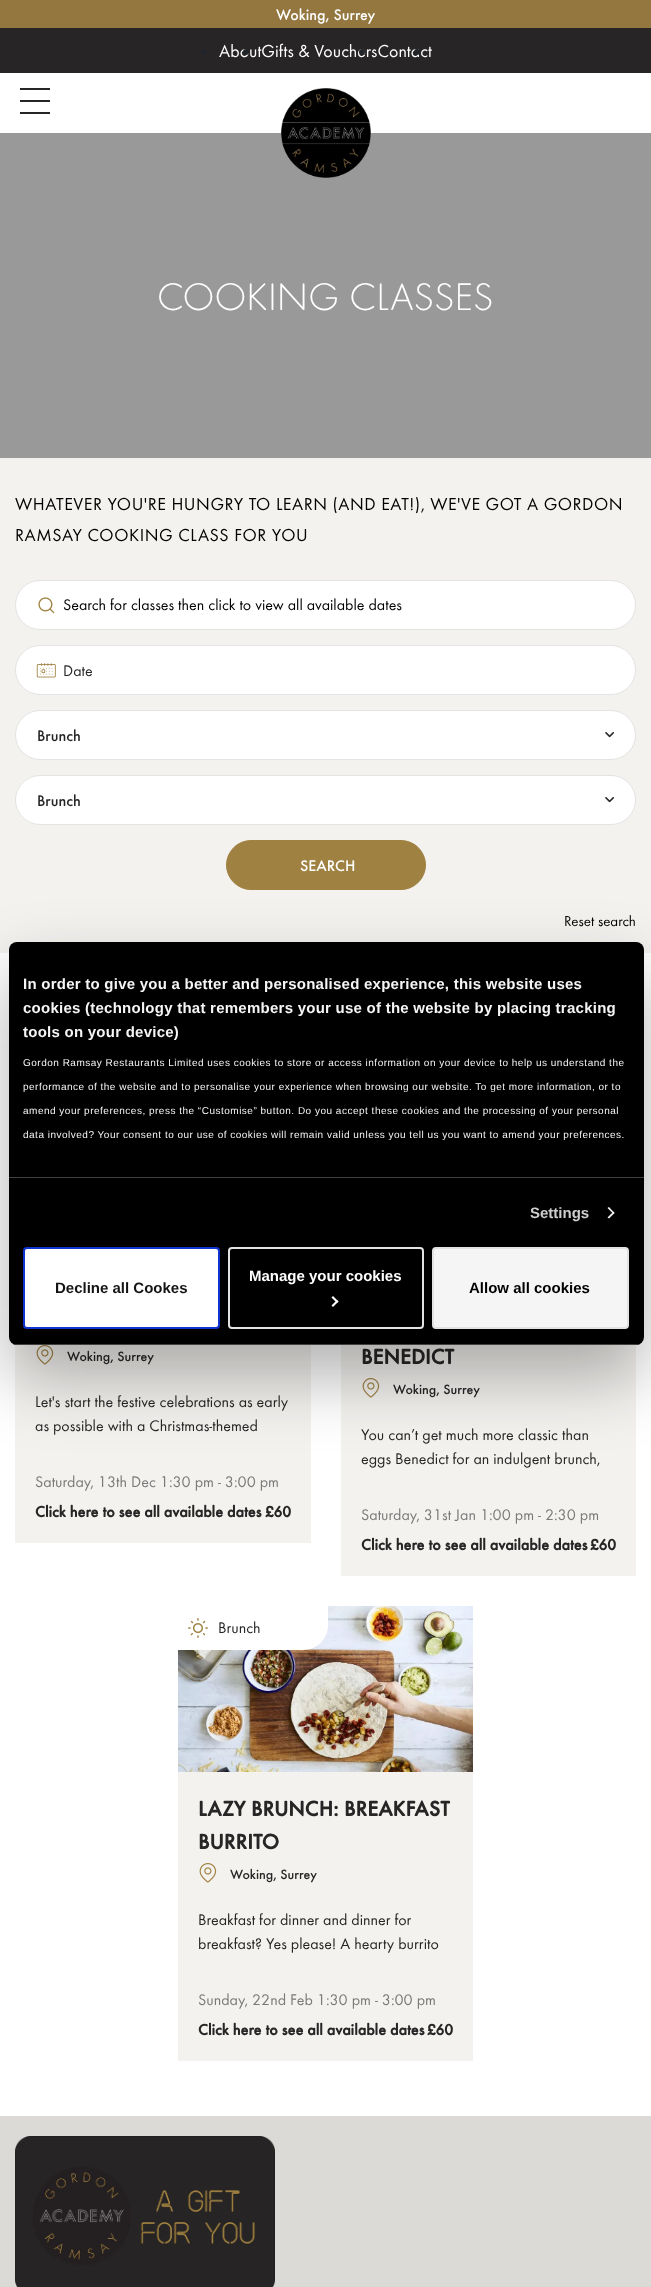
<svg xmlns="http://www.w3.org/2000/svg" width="651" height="2287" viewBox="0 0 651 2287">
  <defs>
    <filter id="blur1" x="-50%" y="-200%" width="200%" height="500%"><feGaussianBlur stdDeviation="34"/></filter>
    <clipPath id="clip1"><rect x="9" y="942" width="635" height="403" rx="8"/></clipPath>
  </defs>
  <rect width="100%" height="100%" fill="#ffffff"/>
  <rect x="0" y="0" width="651" height="28" fill="#94763f"/>
  <text x="276" y="20" font-family="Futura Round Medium" font-size="16" font-weight="500" fill="#ffffff">Woking, Surrey</text>
  <rect x="0" y="28" width="651" height="45" fill="#272525"/>
  <circle cx="204" cy="52" r="3" fill="#212529"/>
  <text x="219" y="57" font-family="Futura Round" font-size="18" fill="#ffffff">AboutGifts &amp; VouchersContact</text>
  <circle cx="246" cy="52" r="3" fill="#212529"/>
  <circle cx="362" cy="52" r="3" fill="#212529"/>
  <circle cx="417" cy="52" r="3" fill="#212529"/>
  <rect x="20" y="88" width="30" height="2" fill="#272525"/>
  <rect x="20" y="100" width="30" height="2" fill="#272525"/>
  <rect x="20" y="112" width="30" height="2" fill="#272525"/>
  <rect x="0" y="133" width="651" height="325" fill="#999999"/>
  <image x="281" y="88" width="90" height="90" href="img1.png"/>
  <text x="157" y="310" font-family="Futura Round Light" font-size="40" font-weight="300" fill="#ffffff">COOKING CLASSES</text>
  <rect x="0" y="458" width="651" height="495" fill="#f4f2ef"/>
  <text x="15" y="510" font-family="Futura Round" font-size="18" letter-spacing="0.5" fill="#000000">WHATEVER YOU'RE HUNGRY TO LEARN (AND EAT!), WE'VE GOT A GORDON</text>
  <text x="15" y="541" font-family="Futura Round" font-size="18" letter-spacing="0.5" fill="#000000">RAMSAY COOKING CLASS FOR YOU</text>
  <rect x="15.5" y="580.5" width="620" height="49" rx="24.5" fill="#ffffff" stroke="#e4e3e3"/>
  <image x="38" y="597" width="17" height="17" href="img2.png"/>
  <text x="63" y="610" font-family="Futura Round" font-size="16" fill="#000000">Search for classes then click to view all available dates</text>
  <rect x="15.5" y="645.5" width="620" height="49" rx="24.5" fill="#ffffff" stroke="#e4e3e3"/>
  <image x="36" y="663" width="20" height="15" href="img3.png"/>
  <text x="63" y="676" font-family="Futura Round" font-size="16" fill="#272525">Date</text>
  <rect x="15.5" y="710.5" width="620" height="49" rx="24.5" fill="#ffffff" stroke="#e4e3e3"/>
  <text x="37" y="741" font-family="Futura Round Medium" font-size="16" font-weight="500" fill="#272525">Brunch</text>
  <image x="605" y="732" width="9" height="6" href="img4.png"/>
  <rect x="15.5" y="775.5" width="620" height="49" rx="24.5" fill="#ffffff" stroke="#e4e3e3"/>
  <text x="37" y="806" font-family="Futura Round Medium" font-size="16" font-weight="500" fill="#272525">Brunch</text>
  <image x="605" y="797" width="9" height="6" href="img4.png"/>
  <rect x="226.5" y="840.5" width="199" height="49" rx="24.5" fill="#9f8142" stroke="#9f8142"/>
  <text x="300" y="871" font-family="Futura Round Medium" font-size="16" font-weight="500" fill="#ffffff">SEARCH</text>
  <text x="564" y="926" font-family="Futura Round" font-size="15" fill="#000000">Reset search</text>
  <rect x="15" y="1344" width="296" height="199" fill="#f4f2ef"/>
  <image x="36" y="1345" width="18" height="20" href="img5.png"/>
  <text x="67" y="1361" font-family="Futura Round Medium" font-size="14" font-weight="500" fill="#272525">Woking, Surrey</text>
  <text x="35" y="1407" font-family="Futura Round" font-size="16" fill="#272525">Let's start the festive celebrations as early</text>
  <text x="35" y="1431" font-family="Futura Round" font-size="16" fill="#272525">as possible with a Christmas-themed</text>
  <text x="35" y="1487" font-family="Futura Round" font-size="16" fill="#7a7a7a">Saturday, 13th Dec 1:30 pm - 3:00 pm</text>
  <text x="35" y="1517" font-family="Futura Round Medium" font-size="16" font-weight="bold" fill="#272525">Click here to see all available dates</text>
  <text x="265" y="1517" font-family="Futura Round Medium" font-size="16" font-weight="bold" fill="#272525">£60</text>
  <rect x="341" y="1345" width="295" height="231" fill="#f4f2ef"/>
  <text x="361" y="1364" font-family="Futura Round Medium" font-size="22" font-weight="bold" fill="#272525">BENEDICT</text>
  <image x="362" y="1378" width="18" height="20" href="img5.png"/>
  <text x="393" y="1394" font-family="Futura Round Medium" font-size="14" font-weight="500" fill="#272525">Woking, Surrey</text>
  <text x="361" y="1440" font-family="Futura Round" font-size="16" fill="#272525">You can’t get much more classic than</text>
  <text x="361" y="1464" font-family="Futura Round" font-size="16" fill="#272525">eggs Benedict for an indulgent brunch,</text>
  <text x="361" y="1520" font-family="Futura Round" font-size="16" fill="#7a7a7a">Saturday, 31st Jan 1:00 pm - 2:30 pm</text>
  <text x="361" y="1550" font-family="Futura Round Medium" font-size="16" font-weight="bold" fill="#272525">Click here to see all available dates</text>
  <text x="590" y="1550" font-family="Futura Round Medium" font-size="16" font-weight="bold" fill="#272525">£60</text>
  <rect x="178" y="1772" width="295" height="289" fill="#f4f2ef"/>
  <image x="178" y="1606" width="295" height="166" href="img6.png"/>
  <path d="M178 1606H328V1625C328 1639 317 1650 303 1650H178Z" fill="#ffffff"/>
  <image x="188" y="1618" width="20" height="20" href="img7.png"/>
  <text x="218" y="1633" font-family="Futura Round" font-size="16" fill="#272525">Brunch</text>
  <text x="198" y="1816" font-family="Futura Round Medium" font-size="22" font-weight="bold" fill="#272525">LAZY BRUNCH: BREAKFAST</text>
  <text x="198" y="1849" font-family="Futura Round Medium" font-size="22" font-weight="bold" fill="#272525">BURRITO</text>
  <image x="199" y="1863" width="18" height="20" href="img5.png"/>
  <text x="230" y="1879" font-family="Futura Round Medium" font-size="14" font-weight="500" fill="#272525">Woking, Surrey</text>
  <text x="198" y="1925" font-family="Futura Round" font-size="16" fill="#272525">Breakfast for dinner and dinner for</text>
  <text x="198" y="1949" font-family="Futura Round" font-size="16" fill="#272525">breakfast? Yes please! A hearty burrito</text>
  <text x="198" y="2005" font-family="Futura Round" font-size="16" fill="#7a7a7a">Sunday, 22nd Feb 1:30 pm - 3:00 pm</text>
  <text x="198" y="2035" font-family="Futura Round Medium" font-size="16" font-weight="bold" fill="#272525">Click here to see all available dates</text>
  <text x="427" y="2035" font-family="Futura Round Medium" font-size="16" font-weight="bold" fill="#272525">£60</text>
  <rect x="0" y="2116" width="651" height="171" fill="#dcdad7"/>
  <image x="15" y="2136" width="260" height="151" href="img8.png"/>
  <rect x="9" y="974" width="635" height="403" rx="8" fill="#000000" fill-opacity="0.3" filter="url(#blur1)"/>
  <rect x="9" y="942" width="635" height="403" rx="8" fill="#000000"/>
  <rect x="9" y="1177" width="635" height="1" fill="#404040"/>
  <text x="23" y="989" font-family="Liberation Sans" font-size="15" font-weight="bold" letter-spacing="0.25" fill="#f5f5f5">In order to give you a better and personalised experience, this website uses</text>
  <text x="23" y="1013" font-family="Liberation Sans" font-size="15" font-weight="bold" letter-spacing="0.25" fill="#f5f5f5">cookies (technology that remembers your use of the website by placing tracking</text>
  <text x="23" y="1037" font-family="Liberation Sans" font-size="15" font-weight="bold" letter-spacing="0.25" fill="#f5f5f5">tools on your device)</text>
  <text x="23" y="1066" font-family="Liberation Sans" font-size="10" letter-spacing="0.5" fill="#f5f5f5">Gordon Ramsay Restaurants Limited uses cookies to store or access information on your device to help us understand the</text>
  <text x="23" y="1090" font-family="Liberation Sans" font-size="10" letter-spacing="0.5" fill="#f5f5f5">performance of the website and to personalise your experience when browsing our website. To get more information, or to</text>
  <text x="23" y="1114" font-family="Liberation Sans" font-size="10" letter-spacing="0.5" fill="#f5f5f5">amend your preferences, press the “Customise” button. Do you accept these cookies and the processing of your personal</text>
  <text x="23" y="1138" font-family="Liberation Sans" font-size="10" letter-spacing="0.5" fill="#f5f5f5">data involved? Your consent to our use of cookies will remain valid unless you tell us you want to amend your preferences.</text>
  <text x="530" y="1218" font-family="Liberation Sans" font-size="15" font-weight="bold" fill="#cfcdcd">Settings</text>
  <path d="M609 1207L614.5 1213L613.5 1214L607.5 1208Z" fill="#f5f5f5"/>
  <path d="M613.5 1211.5L614.5 1213L609 1218.5L607.5 1217.5Z" fill="#f5f5f5"/>
  <g clip-path="url(#clip1)">
    <rect x="9" y="1344" width="635" height="1" fill="#404040"/>
  </g>
  <rect x="229" y="1248" width="194" height="80" rx="3" fill="none" stroke="#e3e2e2" stroke-width="2"/>
  <text x="249" y="1281" font-family="Liberation Sans" font-size="15" font-weight="bold" fill="#ffffff">Manage your cookies</text>
  <path d="M333 1296L338.5 1301.5L337 1303L331.5 1297.5Z" fill="#ffffff"/>
  <path d="M337 1300L338.5 1301.5L333 1307L331.5 1305.5Z" fill="#ffffff"/>
  <rect x="24" y="1248" width="195" height="80" rx="3" fill="#ffffff" stroke="#1032cf" stroke-width="2"/>
  <text x="55" y="1293" font-family="Liberation Sans" font-size="15" font-weight="bold" fill="#141414">Decline all Cookes</text>
  <rect x="433" y="1248" width="195" height="80" rx="3" fill="#f5f5f5" stroke="#e3e2e2" stroke-width="2"/>
  <text x="469" y="1293" font-family="Liberation Sans" font-size="15" font-weight="bold" fill="#000000">Allow all cookies</text>
</svg>
